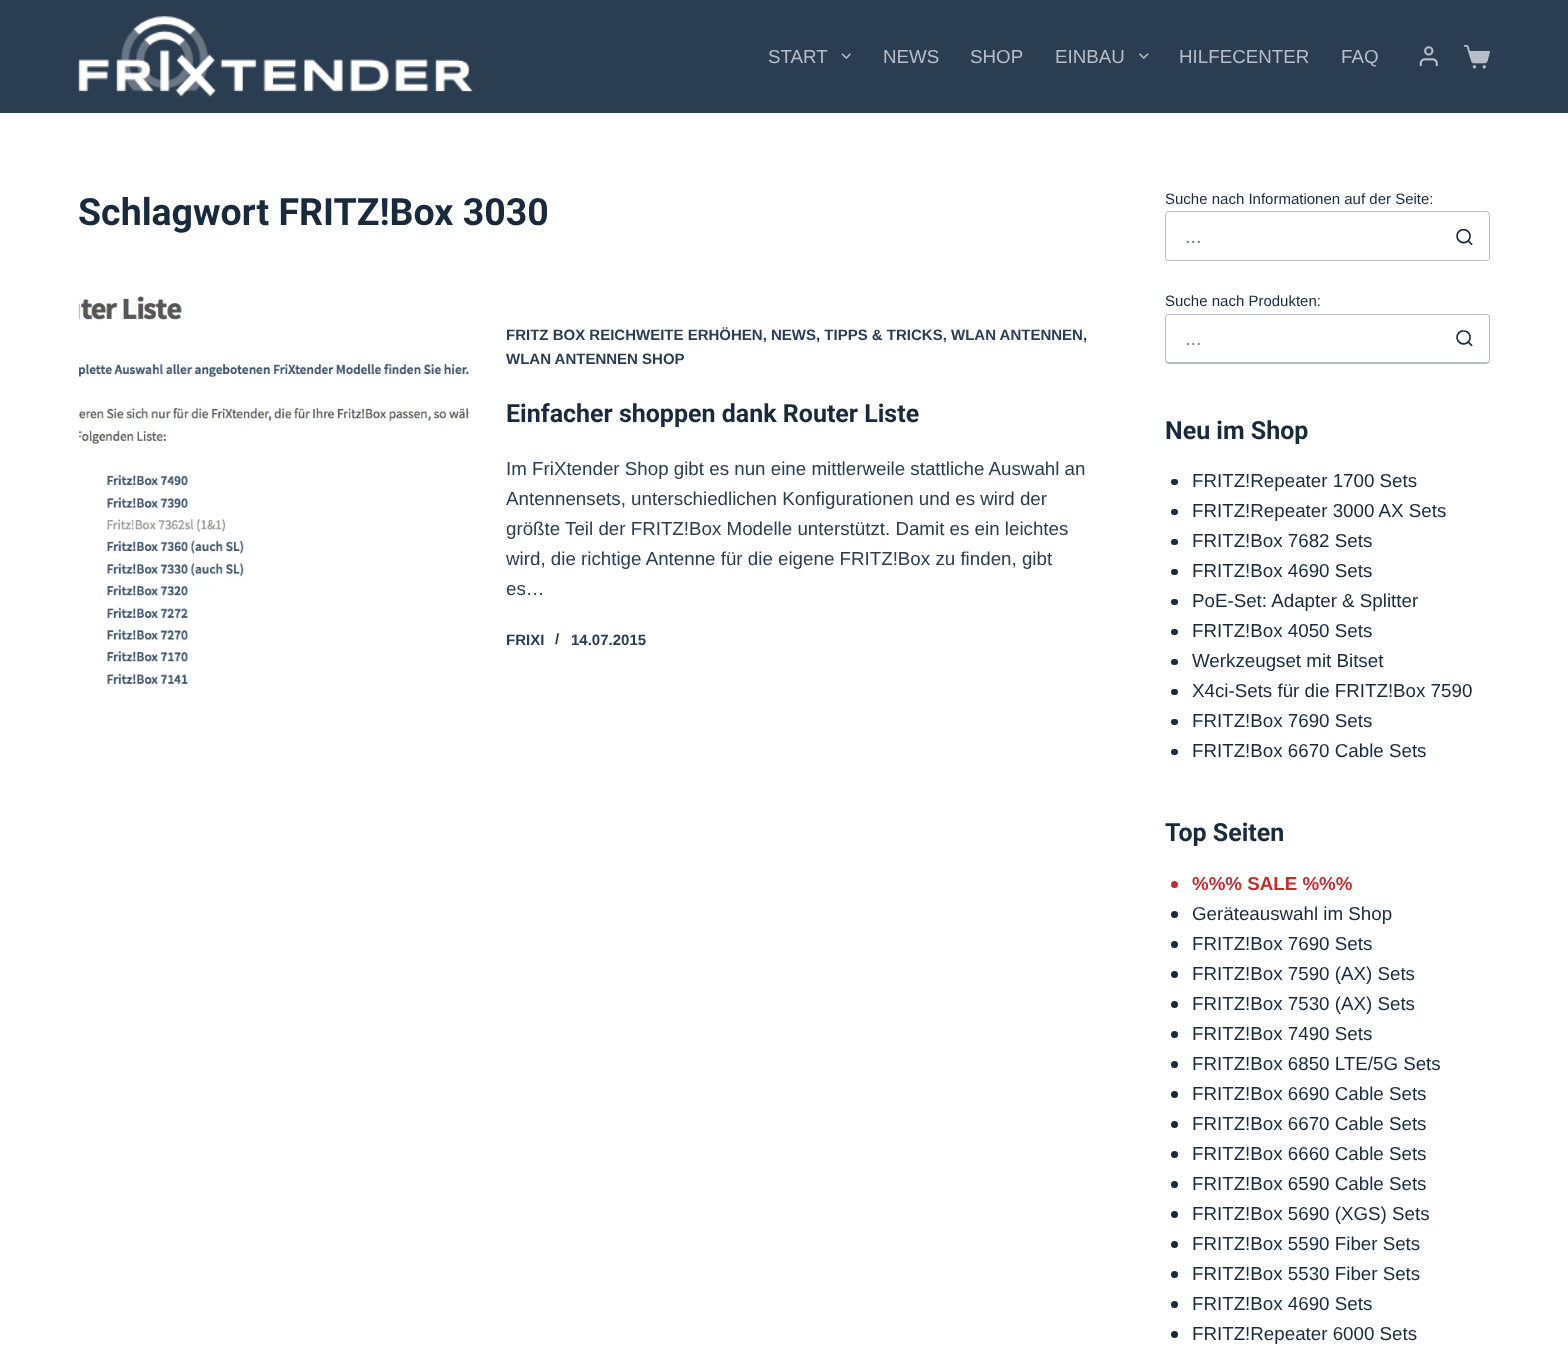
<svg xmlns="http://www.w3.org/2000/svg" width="1568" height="1354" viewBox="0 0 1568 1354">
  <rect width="100%" height="100%" fill="#ffffff"/>
  <rect x="0" y="0" width="1568" height="113" fill="#2b3d50"/>
  <image x="78" y="16" width="395" height="81" href="img1.png"/>
  <text x="768" y="63" font-family="Liberation Sans" font-size="18.75" fill="#b7bdc9">START</text>
  <image x="841" y="53" width="10" height="6" href="img2.png"/>
  <text x="883" y="63" font-family="Liberation Sans" font-size="18.75" fill="#b7bdc9">NEWS</text>
  <text x="970" y="63" font-family="Liberation Sans" font-size="18.75" fill="#b7bdc9">SHOP</text>
  <text x="1055" y="63" font-family="Liberation Sans" font-size="18.75" fill="#b7bdc9">EINBAU</text>
  <image x="1139" y="53" width="10" height="6" href="img3.png"/>
  <text x="1179" y="63" font-family="Liberation Sans" font-size="18.75" fill="#b7bdc9">HILFECENTER</text>
  <text x="1341" y="63" font-family="Liberation Sans" font-size="18.75" fill="#b7bdc9">FAQ</text>
  <image x="1419" y="46" width="19" height="20" href="img4.png"/>
  <image x="1464" y="45" width="26" height="24" href="img5.png"/>
  <text x="78" y="225" font-family="Roboto" font-size="37.5" font-weight="bold" fill="#192a3d">Schlagwort FRITZ!Box 3030</text>
  <image x="78" y="296" width="391" height="391" href="img6.png"/>
  <text x="506" y="340" font-family="Liberation Sans" font-size="15" font-weight="bold" fill="#2b3d50">FRITZ BOX REICHWEITE ERHÖHEN, NEWS, TIPPS &amp; TRICKS, WLAN ANTENNEN,</text>
  <text x="506" y="364" font-family="Liberation Sans" font-size="15" font-weight="bold" fill="#2b3d50">WLAN ANTENNEN SHOP</text>
  <text x="506" y="422" font-family="Roboto" font-size="25" font-weight="bold" fill="#192a3d">Einfacher shoppen dank Router Liste</text>
  <text x="506" y="475" font-family="Liberation Sans" font-size="18.75" fill="#2b3d50">Im FriXtender Shop gibt es nun eine mittlerweile stattliche Auswahl an</text>
  <text x="506" y="505" font-family="Liberation Sans" font-size="18.75" fill="#2b3d50">Antennensets, unterschiedlichen Konfigurationen und es wird der</text>
  <text x="506" y="535" font-family="Liberation Sans" font-size="18.75" fill="#2b3d50">größte Teil der FRITZ!Box Modelle unterstützt. Damit es ein leichtes</text>
  <text x="506" y="565" font-family="Liberation Sans" font-size="18.75" fill="#2b3d50">wird, die richtige Antenne für die eigene FRITZ!Box zu finden, gibt</text>
  <text x="506" y="595" font-family="Liberation Sans" font-size="18.75" fill="#2b3d50">es…</text>
  <text x="506" y="645" font-family="Liberation Sans" font-size="15" font-weight="bold" fill="#2b3d50">FRIXI</text>
  <text x="555" y="644" font-family="Liberation Sans" font-size="15" font-weight="bold" fill="#2b3d50">/</text>
  <text x="571" y="645" font-family="Liberation Sans" font-size="15" font-weight="bold" fill="#2b3d50">14.07.2015</text>
  <text x="1165" y="204" font-family="Liberation Sans" font-size="15" fill="#192a3d">Suche nach Informationen auf der Seite:</text>
  <path d="M1169 211H1440V261H1169C1167 261 1165 260 1165 258V215C1165 213 1167 211 1169 211ZM1169 212H1440V260H1169C1167 260 1166 259 1166 258V215C1166 214 1167 212 1169 212Z" fill="#b7bdc9" fill-rule="evenodd"/>
  <text x="1185" y="243" font-family="Liberation Sans" font-size="20" fill="#757f8b">...</text>
  <path d="M1440 211H1486C1488 211 1490 213 1490 215V258C1490 260 1488 261 1486 261H1440ZM1440 212H1486C1488 212 1489 214 1489 215V258C1489 259 1488 260 1486 260H1440Z" fill="#b7bdc9" fill-rule="evenodd"/>
  <image x="1456" y="229" width="17" height="16" href="img7.png"/>
  <text x="1165" y="306" font-family="Liberation Sans" font-size="15" fill="#192a3d">Suche nach Produkten:</text>
  <path d="M1169 314H1440V364H1169C1167 364 1165 362 1165 360V318C1165 315 1167 314 1169 314ZM1169 315H1440V362H1169C1167 362 1166 361 1166 360V318C1166 316 1167 315 1169 315Z" fill="#b7bdc9" fill-rule="evenodd"/>
  <text x="1185" y="345" font-family="Liberation Sans" font-size="20" fill="#757f8b">...</text>
  <path d="M1440 314H1486C1488 314 1490 315 1490 318V360C1490 362 1488 364 1486 364H1440ZM1440 315H1486C1488 315 1489 316 1489 318V360C1489 361 1488 362 1486 362H1440Z" fill="#b7bdc9" fill-rule="evenodd"/>
  <image x="1456" y="330" width="17" height="16" href="img8.png"/>
  <path d="M1463.5 329.5C1468.5 328.5 1473.5 332 1474 337" fill="none" stroke="#ffffff" stroke-width="1.9" stroke-linecap="round"/>
  <text x="1165" y="439" font-family="Roboto" font-size="25" font-weight="bold" fill="#192a3d">Neu im Shop</text>
  <rect x="1171" y="479" width="7" height="6" rx="3" fill="#192a3d"/>
  <text x="1192" y="487" font-family="Liberation Sans" font-size="18.75" fill="#192a3d">FRITZ!Repeater 1700 Sets</text>
  <rect x="1171" y="509" width="7" height="6" rx="3" fill="#192a3d"/>
  <text x="1192" y="517" font-family="Liberation Sans" font-size="18.75" fill="#192a3d">FRITZ!Repeater 3000 AX Sets</text>
  <rect x="1171" y="539" width="7" height="6" rx="3" fill="#192a3d"/>
  <text x="1192" y="547" font-family="Liberation Sans" font-size="18.75" fill="#192a3d">FRITZ!Box 7682 Sets</text>
  <rect x="1171" y="569" width="7" height="6" rx="3" fill="#192a3d"/>
  <text x="1192" y="577" font-family="Liberation Sans" font-size="18.75" fill="#192a3d">FRITZ!Box 4690 Sets</text>
  <rect x="1171" y="599" width="7" height="6" rx="3" fill="#192a3d"/>
  <text x="1192" y="607" font-family="Liberation Sans" font-size="18.75" fill="#192a3d">PoE-Set: Adapter &amp; Splitter</text>
  <rect x="1171" y="629" width="7" height="6" rx="3" fill="#192a3d"/>
  <text x="1192" y="637" font-family="Liberation Sans" font-size="18.75" fill="#192a3d">FRITZ!Box 4050 Sets</text>
  <rect x="1171" y="659" width="7" height="6" rx="3" fill="#192a3d"/>
  <text x="1192" y="667" font-family="Liberation Sans" font-size="18.75" fill="#192a3d">Werkzeugset mit Bitset</text>
  <rect x="1171" y="689" width="7" height="6" rx="3" fill="#192a3d"/>
  <text x="1192" y="697" font-family="Liberation Sans" font-size="18.75" fill="#192a3d">X4ci-Sets für die FRITZ!Box 7590</text>
  <rect x="1171" y="719" width="7" height="6" rx="3" fill="#192a3d"/>
  <text x="1192" y="727" font-family="Liberation Sans" font-size="18.75" fill="#192a3d">FRITZ!Box 7690 Sets</text>
  <rect x="1171" y="749" width="7" height="6" rx="3" fill="#192a3d"/>
  <text x="1192" y="757" font-family="Liberation Sans" font-size="18.75" fill="#192a3d">FRITZ!Box 6670 Cable Sets</text>
  <text x="1165" y="841" font-family="Roboto" font-size="25" font-weight="bold" fill="#192a3d">Top Seiten</text>
  <circle cx="1174.5" cy="884.5" r="3.5" fill="#c42d2d"/>
  <text x="1192" y="890" font-family="Liberation Sans" font-size="18.75" font-weight="bold" fill="#c42d2d">%%% SALE %%%</text>
  <circle cx="1174.5" cy="914.5" r="3.5" fill="#192a3d"/>
  <text x="1192" y="920" font-family="Liberation Sans" font-size="18.75" fill="#192a3d">Geräteauswahl im Shop</text>
  <circle cx="1174.5" cy="944.5" r="3.5" fill="#192a3d"/>
  <text x="1192" y="950" font-family="Liberation Sans" font-size="18.75" fill="#192a3d">FRITZ!Box 7690 Sets</text>
  <circle cx="1174.5" cy="974.5" r="3.5" fill="#192a3d"/>
  <text x="1192" y="980" font-family="Liberation Sans" font-size="18.75" fill="#192a3d">FRITZ!Box 7590 (AX) Sets</text>
  <circle cx="1174.5" cy="1004.5" r="3.5" fill="#192a3d"/>
  <text x="1192" y="1010" font-family="Liberation Sans" font-size="18.75" fill="#192a3d">FRITZ!Box 7530 (AX) Sets</text>
  <circle cx="1174.5" cy="1034.5" r="3.5" fill="#192a3d"/>
  <text x="1192" y="1040" font-family="Liberation Sans" font-size="18.75" fill="#192a3d">FRITZ!Box 7490 Sets</text>
  <circle cx="1174.5" cy="1064.5" r="3.5" fill="#192a3d"/>
  <text x="1192" y="1070" font-family="Liberation Sans" font-size="18.75" fill="#192a3d">FRITZ!Box 6850 LTE/5G Sets</text>
  <circle cx="1174.5" cy="1094.5" r="3.5" fill="#192a3d"/>
  <text x="1192" y="1100" font-family="Liberation Sans" font-size="18.75" fill="#192a3d">FRITZ!Box 6690 Cable Sets</text>
  <circle cx="1174.5" cy="1124.5" r="3.5" fill="#192a3d"/>
  <text x="1192" y="1130" font-family="Liberation Sans" font-size="18.75" fill="#192a3d">FRITZ!Box 6670 Cable Sets</text>
  <circle cx="1174.5" cy="1154.5" r="3.5" fill="#192a3d"/>
  <text x="1192" y="1160" font-family="Liberation Sans" font-size="18.75" fill="#192a3d">FRITZ!Box 6660 Cable Sets</text>
  <circle cx="1174.5" cy="1184.5" r="3.5" fill="#192a3d"/>
  <text x="1192" y="1190" font-family="Liberation Sans" font-size="18.75" fill="#192a3d">FRITZ!Box 6590 Cable Sets</text>
  <circle cx="1174.5" cy="1214.5" r="3.5" fill="#192a3d"/>
  <text x="1192" y="1220" font-family="Liberation Sans" font-size="18.75" fill="#192a3d">FRITZ!Box 5690 (XGS) Sets</text>
  <circle cx="1174.5" cy="1244.5" r="3.5" fill="#192a3d"/>
  <text x="1192" y="1250" font-family="Liberation Sans" font-size="18.75" fill="#192a3d">FRITZ!Box 5590 Fiber Sets</text>
  <circle cx="1174.5" cy="1274.5" r="3.5" fill="#192a3d"/>
  <text x="1192" y="1280" font-family="Liberation Sans" font-size="18.75" fill="#192a3d">FRITZ!Box 5530 Fiber Sets</text>
  <circle cx="1174.5" cy="1304.5" r="3.5" fill="#192a3d"/>
  <text x="1192" y="1310" font-family="Liberation Sans" font-size="18.75" fill="#192a3d">FRITZ!Box 4690 Sets</text>
  <circle cx="1174.5" cy="1334.5" r="3.5" fill="#192a3d"/>
  <text x="1192" y="1340" font-family="Liberation Sans" font-size="18.75" fill="#192a3d">FRITZ!Repeater 6000 Sets</text>
</svg>
